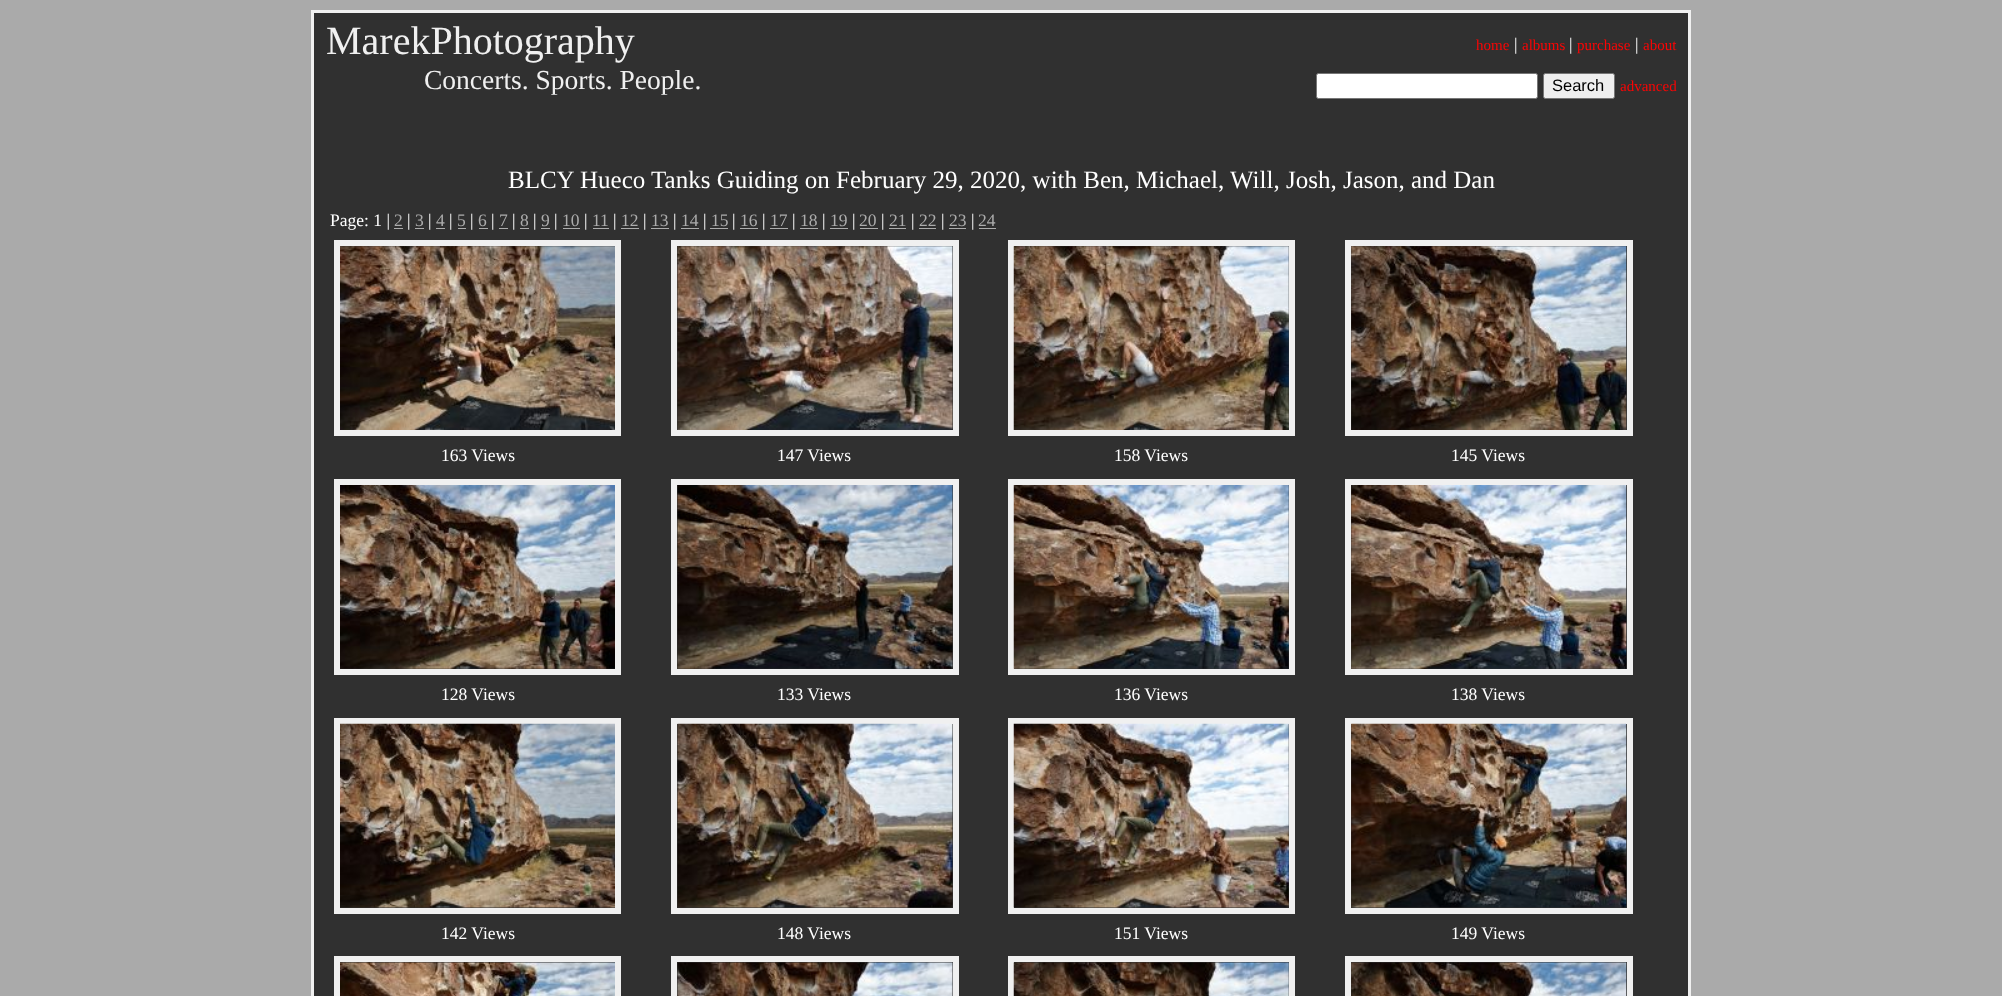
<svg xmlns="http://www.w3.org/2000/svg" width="2002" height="996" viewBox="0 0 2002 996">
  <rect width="100%" height="100%" fill="#aaaaaa"/>
  <rect x="312.5" y="11.5" width="1377" height="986" fill="#303030" stroke="#f0f0f0" stroke-width="3"/>
  <text x="326" y="54" font-family="Liberation Serif" font-size="40" fill="#f0f0f0">MarekPhotography</text>
  <text x="424" y="89" font-family="Liberation Serif" font-size="27.5" fill="#f0f0f0">Concerts. Sports. People.</text>
  <text x="1476" y="50" font-family="Liberation Serif" font-size="15" fill="#fc0404">home</text>
  <text x="1514" y="50" font-family="Liberation Serif" font-size="17.5" fill="#ffffff">|</text>
  <text x="1522" y="50" font-family="Liberation Serif" font-size="15" fill="#fc0404">albums</text>
  <text x="1569" y="50" font-family="Liberation Serif" font-size="17.5" fill="#ffffff">|</text>
  <text x="1577" y="50" font-family="Liberation Serif" font-size="15" fill="#fc0404">purchase</text>
  <text x="1635" y="50" font-family="Liberation Serif" font-size="17.5" fill="#ffffff">|</text>
  <text x="1643" y="50" font-family="Liberation Serif" font-size="15" fill="#fc0404">about</text>
  <rect x="1316.5" y="73.5" width="221" height="25" rx="2" fill="#ffffff" stroke="#767676"/>
  <rect x="1543.5" y="73.5" width="71" height="25" rx="2" fill="#efefef" stroke="#767676"/>
  <text x="1552" y="91" font-family="Liberation Sans" font-size="16.5" fill="#000000">Search</text>
  <text x="1620" y="91" font-family="Liberation Serif" font-size="15" fill="#fc0404">advanced</text>
  <text x="508" y="188" font-family="Liberation Serif" font-size="25" fill="#ffffff">BLCY Hueco Tanks Guiding on February 29, 2020, with Ben, Michael, Will, Josh, Jason, and Dan</text>
  <text x="330" y="226" font-family="Liberation Serif" font-size="17.5" fill="#ffffff">Page: 1 |</text>
  <text x="394" y="226" font-family="Liberation Serif" font-size="17.5" fill="#acacac">2</text>
  <rect x="394" y="228" width="9" height="1" fill="#acacac"/>
  <text x="407" y="226" font-family="Liberation Serif" font-size="17.5" fill="#ffffff">|</text>
  <text x="415" y="226" font-family="Liberation Serif" font-size="17.5" fill="#acacac">3</text>
  <rect x="415" y="228" width="9" height="1" fill="#acacac"/>
  <text x="428" y="226" font-family="Liberation Serif" font-size="17.5" fill="#ffffff">|</text>
  <text x="436" y="226" font-family="Liberation Serif" font-size="17.5" fill="#acacac">4</text>
  <rect x="436" y="228" width="9" height="1" fill="#acacac"/>
  <text x="449" y="226" font-family="Liberation Serif" font-size="17.5" fill="#ffffff">|</text>
  <text x="457" y="226" font-family="Liberation Serif" font-size="17.5" fill="#acacac">5</text>
  <rect x="458" y="228" width="8" height="1" fill="#acacac"/>
  <text x="470" y="226" font-family="Liberation Serif" font-size="17.5" fill="#ffffff">|</text>
  <text x="478" y="226" font-family="Liberation Serif" font-size="17.5" fill="#acacac">6</text>
  <rect x="479" y="228" width="9" height="1" fill="#acacac"/>
  <text x="491" y="226" font-family="Liberation Serif" font-size="17.5" fill="#ffffff">|</text>
  <text x="499" y="226" font-family="Liberation Serif" font-size="17.5" fill="#acacac">7</text>
  <rect x="499" y="228" width="9" height="1" fill="#acacac"/>
  <text x="512" y="226" font-family="Liberation Serif" font-size="17.5" fill="#ffffff">|</text>
  <text x="520" y="226" font-family="Liberation Serif" font-size="17.5" fill="#acacac">8</text>
  <rect x="520" y="228" width="9" height="1" fill="#acacac"/>
  <text x="533" y="226" font-family="Liberation Serif" font-size="17.5" fill="#ffffff">|</text>
  <text x="541" y="226" font-family="Liberation Serif" font-size="17.5" fill="#acacac">9</text>
  <rect x="541" y="228" width="9" height="1" fill="#acacac"/>
  <text x="554" y="226" font-family="Liberation Serif" font-size="17.5" fill="#ffffff">|</text>
  <text x="562" y="226" font-family="Liberation Serif" font-size="17.5" fill="#acacac">10</text>
  <rect x="563" y="228" width="17" height="1" fill="#acacac"/>
  <text x="584" y="226" font-family="Liberation Serif" font-size="17.5" fill="#ffffff">|</text>
  <text x="592" y="226" font-family="Liberation Serif" font-size="17.5" fill="#acacac">11</text>
  <rect x="593" y="228" width="16" height="1" fill="#acacac"/>
  <text x="613" y="226" font-family="Liberation Serif" font-size="17.5" fill="#ffffff">|</text>
  <text x="621" y="226" font-family="Liberation Serif" font-size="17.5" fill="#acacac">12</text>
  <rect x="621" y="228" width="18" height="1" fill="#acacac"/>
  <text x="643" y="226" font-family="Liberation Serif" font-size="17.5" fill="#ffffff">|</text>
  <text x="651" y="226" font-family="Liberation Serif" font-size="17.5" fill="#acacac">13</text>
  <rect x="651" y="228" width="18" height="1" fill="#acacac"/>
  <text x="673" y="226" font-family="Liberation Serif" font-size="17.5" fill="#ffffff">|</text>
  <text x="681" y="226" font-family="Liberation Serif" font-size="17.5" fill="#acacac">14</text>
  <rect x="681" y="228" width="18" height="1" fill="#acacac"/>
  <text x="703" y="226" font-family="Liberation Serif" font-size="17.5" fill="#ffffff">|</text>
  <text x="711" y="226" font-family="Liberation Serif" font-size="17.5" fill="#acacac">15</text>
  <rect x="710" y="228" width="18" height="1" fill="#acacac"/>
  <text x="732" y="226" font-family="Liberation Serif" font-size="17.5" fill="#ffffff">|</text>
  <text x="740" y="226" font-family="Liberation Serif" font-size="17.5" fill="#acacac">16</text>
  <rect x="740" y="228" width="18" height="1" fill="#acacac"/>
  <text x="762" y="226" font-family="Liberation Serif" font-size="17.5" fill="#ffffff">|</text>
  <text x="770" y="226" font-family="Liberation Serif" font-size="17.5" fill="#acacac">17</text>
  <rect x="770" y="228" width="18" height="1" fill="#acacac"/>
  <text x="792" y="226" font-family="Liberation Serif" font-size="17.5" fill="#ffffff">|</text>
  <text x="800" y="226" font-family="Liberation Serif" font-size="17.5" fill="#acacac">18</text>
  <rect x="800" y="228" width="18" height="1" fill="#acacac"/>
  <text x="822" y="226" font-family="Liberation Serif" font-size="17.5" fill="#ffffff">|</text>
  <text x="830" y="226" font-family="Liberation Serif" font-size="17.5" fill="#acacac">19</text>
  <rect x="830" y="228" width="18" height="1" fill="#acacac"/>
  <text x="852" y="226" font-family="Liberation Serif" font-size="17.5" fill="#ffffff">|</text>
  <text x="859" y="226" font-family="Liberation Serif" font-size="17.5" fill="#acacac">20</text>
  <rect x="860" y="228" width="18" height="1" fill="#acacac"/>
  <text x="881" y="226" font-family="Liberation Serif" font-size="17.5" fill="#ffffff">|</text>
  <text x="889" y="226" font-family="Liberation Serif" font-size="17.5" fill="#acacac">21</text>
  <rect x="889" y="228" width="17" height="1" fill="#acacac"/>
  <text x="911" y="226" font-family="Liberation Serif" font-size="17.5" fill="#ffffff">|</text>
  <text x="919" y="226" font-family="Liberation Serif" font-size="17.5" fill="#acacac">22</text>
  <rect x="919" y="228" width="17" height="1" fill="#acacac"/>
  <text x="941" y="226" font-family="Liberation Serif" font-size="17.5" fill="#ffffff">|</text>
  <text x="949" y="226" font-family="Liberation Serif" font-size="17.5" fill="#acacac">23</text>
  <rect x="949" y="228" width="17" height="1" fill="#acacac"/>
  <text x="971" y="226" font-family="Liberation Serif" font-size="17.5" fill="#ffffff">|</text>
  <text x="978" y="226" font-family="Liberation Serif" font-size="17.5" fill="#acacac">24</text>
  <rect x="979" y="228" width="17" height="1" fill="#acacac"/>
  <rect x="337" y="243" width="281" height="190" fill="none" stroke="#f0f0f0" stroke-width="6"/>
  <image x="340" y="246" width="275" height="184" href="img1.png"/>
  <text x="441" y="461" font-family="Liberation Serif" font-size="17.5" fill="#ffffff">163 Views</text>
  <rect x="674" y="243" width="282" height="190" fill="none" stroke="#f0f0f0" stroke-width="6"/>
  <image x="677" y="246" width="276" height="184" href="img2.png"/>
  <text x="777" y="461" font-family="Liberation Serif" font-size="17.5" fill="#ffffff">147 Views</text>
  <rect x="1011" y="243" width="281" height="190" fill="none" stroke="#f0f0f0" stroke-width="6"/>
  <image x="1013" y="246" width="276" height="184" href="img3.png"/>
  <text x="1114" y="461" font-family="Liberation Serif" font-size="17.5" fill="#ffffff">158 Views</text>
  <rect x="1348" y="243" width="282" height="190" fill="none" stroke="#f0f0f0" stroke-width="6"/>
  <image x="1351" y="246" width="276" height="184" href="img4.png"/>
  <text x="1451" y="461" font-family="Liberation Serif" font-size="17.5" fill="#ffffff">145 Views</text>
  <rect x="337" y="482" width="281" height="190" fill="none" stroke="#f0f0f0" stroke-width="6"/>
  <image x="340" y="485" width="275" height="184" href="img5.png"/>
  <text x="441" y="700" font-family="Liberation Serif" font-size="17.5" fill="#ffffff">128 Views</text>
  <rect x="674" y="482" width="282" height="190" fill="none" stroke="#f0f0f0" stroke-width="6"/>
  <image x="677" y="485" width="276" height="184" href="img6.png"/>
  <text x="777" y="700" font-family="Liberation Serif" font-size="17.5" fill="#ffffff">133 Views</text>
  <rect x="1011" y="482" width="281" height="190" fill="none" stroke="#f0f0f0" stroke-width="6"/>
  <image x="1013" y="485" width="276" height="184" href="img7.png"/>
  <text x="1114" y="700" font-family="Liberation Serif" font-size="17.5" fill="#ffffff">136 Views</text>
  <rect x="1348" y="482" width="282" height="190" fill="none" stroke="#f0f0f0" stroke-width="6"/>
  <image x="1351" y="485" width="276" height="184" href="img8.png"/>
  <text x="1451" y="700" font-family="Liberation Serif" font-size="17.5" fill="#ffffff">138 Views</text>
  <rect x="337" y="721" width="281" height="190" fill="none" stroke="#f0f0f0" stroke-width="6"/>
  <image x="340" y="723" width="275" height="185" href="img9.png"/>
  <text x="441" y="939" font-family="Liberation Serif" font-size="17.5" fill="#ffffff">142 Views</text>
  <rect x="674" y="721" width="282" height="190" fill="none" stroke="#f0f0f0" stroke-width="6"/>
  <image x="677" y="723" width="276" height="185" href="img10.png"/>
  <text x="777" y="939" font-family="Liberation Serif" font-size="17.5" fill="#ffffff">148 Views</text>
  <rect x="1011" y="721" width="281" height="190" fill="none" stroke="#f0f0f0" stroke-width="6"/>
  <image x="1013" y="723" width="276" height="185" href="img11.png"/>
  <text x="1114" y="939" font-family="Liberation Serif" font-size="17.5" fill="#ffffff">151 Views</text>
  <rect x="1348" y="721" width="282" height="190" fill="none" stroke="#f0f0f0" stroke-width="6"/>
  <image x="1351" y="723" width="276" height="185" href="img12.png"/>
  <text x="1451" y="939" font-family="Liberation Serif" font-size="17.5" fill="#ffffff">149 Views</text>
  <rect x="337" y="959" width="281" height="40" fill="none" stroke="#f0f0f0" stroke-width="6"/>
  <image x="340" y="962" width="275" height="34" href="img13.png"/>
  <rect x="674" y="959" width="282" height="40" fill="none" stroke="#f0f0f0" stroke-width="6"/>
  <image x="677" y="962" width="276" height="34" href="img14.png"/>
  <rect x="1011" y="959" width="281" height="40" fill="none" stroke="#f0f0f0" stroke-width="6"/>
  <image x="1013" y="962" width="276" height="34" href="img15.png"/>
  <rect x="1348" y="959" width="282" height="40" fill="none" stroke="#f0f0f0" stroke-width="6"/>
  <image x="1351" y="962" width="276" height="34" href="img16.png"/>
</svg>
